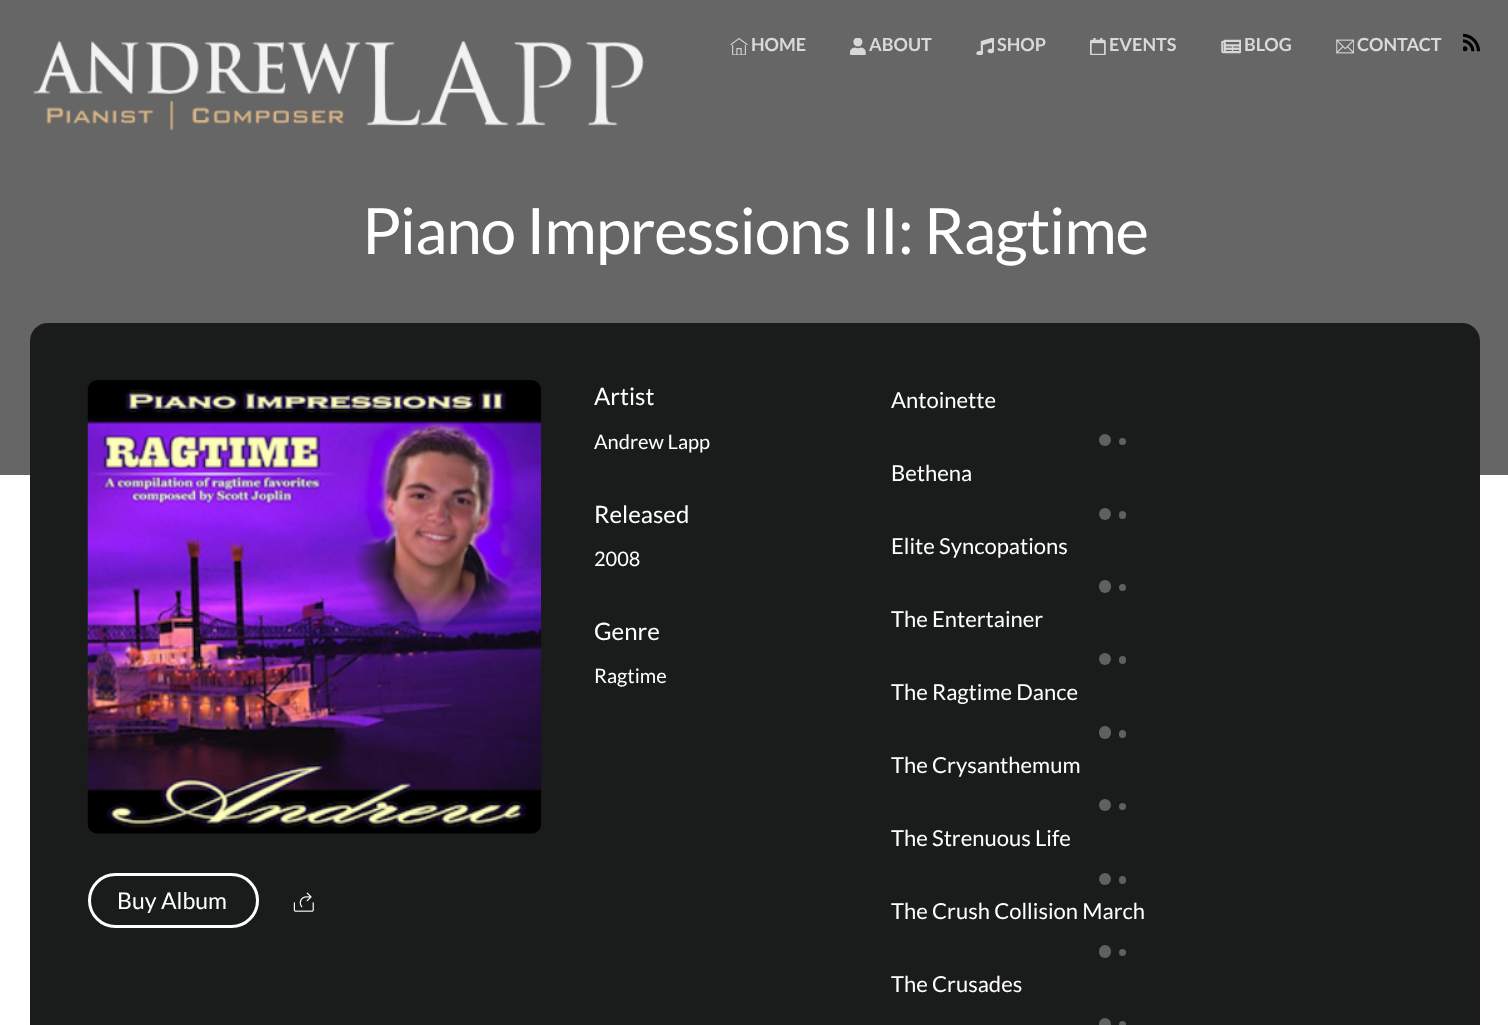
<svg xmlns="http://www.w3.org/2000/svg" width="1508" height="1025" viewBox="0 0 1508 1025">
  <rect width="100%" height="100%" fill="#ffffff"/>
  <rect x="0" y="0" width="1508" height="475" fill="#666666"/>
  <image x="33" y="41" width="611" height="90" href="img1.png"/>
  <image x="730" y="38" width="18" height="17" href="img2.png"/>
  <text x="751" y="51" font-family="Lato" font-size="18" font-weight="bold" fill="#d9d9d9">HOME</text>
  <image x="850" y="38" width="16" height="17" href="img3.png"/>
  <text x="869" y="51" font-family="Lato" font-size="18" font-weight="bold" fill="#d9d9d9">ABOUT</text>
  <image x="976" y="38" width="18" height="17" href="img4.png"/>
  <text x="997" y="51" font-family="Lato" font-size="18" font-weight="bold" fill="#d9d9d9">SHOP</text>
  <image x="1090" y="38" width="16" height="17" href="img5.png"/>
  <text x="1109" y="51" font-family="Lato" font-size="18" font-weight="bold" fill="#d9d9d9">EVENTS</text>
  <image x="1221" y="39" width="20" height="15" href="img6.png"/>
  <text x="1244" y="51" font-family="Lato" font-size="18" font-weight="bold" fill="#d9d9d9">BLOG</text>
  <image x="1336" y="39" width="18" height="15" href="img7.png"/>
  <text x="1357" y="51" font-family="Lato" font-size="18" font-weight="bold" fill="#d9d9d9">CONTACT</text>
  <image x="1463" y="33" width="17" height="19" href="img8.png"/>
  <text x="362" y="254" font-family="Lato" font-size="64" letter-spacing="-1.25" fill="#ffffff">Piano Impressions II: Ragtime</text>
  <rect x="30" y="323" width="1450" height="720" rx="18" fill="#1a1c1c"/>
  <image x="87" y="380" width="455" height="454" href="img9.png"/>
  <rect x="89.5" y="874.5" width="168" height="52" rx="26" fill="none" stroke="#ffffff" stroke-width="3"/>
  <text x="117" y="909" font-family="Lato" font-size="23" fill="#ffffff">Buy Album</text>
  <image x="293" y="892" width="21" height="20" href="img10.png"/>
  <text x="594" y="405" font-family="Lato" font-size="24" fill="#ffffff">Artist</text>
  <text x="594" y="449" font-family="Lato" font-size="20" fill="#ffffff">Andrew Lapp</text>
  <text x="594" y="523" font-family="Lato" font-size="24" fill="#ffffff">Released</text>
  <text x="594" y="566" font-family="Lato" font-size="20" fill="#ffffff">2008</text>
  <text x="594" y="640" font-family="Lato" font-size="24" fill="#ffffff">Genre</text>
  <text x="594" y="683" font-family="Lato" font-size="20" fill="#ffffff">Ragtime</text>
  <text x="891" y="408" font-family="Lato" font-size="22" fill="#ffffff">Antoinette</text>
  <circle cx="1105" cy="440" r="6" fill="#5f6060"/>
  <circle cx="1122.5" cy="441.5" r="3.5" fill="#5f6060"/>
  <text x="891" y="481" font-family="Lato" font-size="22" fill="#ffffff">Bethena</text>
  <circle cx="1105" cy="514" r="6" fill="#5f6060"/>
  <rect x="1119" y="511" width="7" height="8" rx="3.5" fill="#5f6060"/>
  <text x="891" y="554" font-family="Lato" font-size="22" fill="#ffffff">Elite Syncopations</text>
  <rect x="1099" y="580" width="12" height="13" rx="6" fill="#5f6060"/>
  <circle cx="1122.5" cy="587.5" r="3.5" fill="#5f6060"/>
  <text x="891" y="627" font-family="Lato" font-size="22" fill="#ffffff">The Entertainer</text>
  <circle cx="1105" cy="659" r="6" fill="#5f6060"/>
  <rect x="1119" y="656" width="7" height="8" rx="3.5" fill="#5f6060"/>
  <text x="891" y="700" font-family="Lato" font-size="22" fill="#ffffff">The Ragtime Dance</text>
  <rect x="1099" y="726" width="12" height="13" rx="6" fill="#5f6060"/>
  <rect x="1119" y="730" width="7" height="8" rx="3.5" fill="#5f6060"/>
  <text x="891" y="773" font-family="Lato" font-size="22" fill="#ffffff">The Crysanthemum</text>
  <circle cx="1105" cy="805" r="6" fill="#5f6060"/>
  <circle cx="1122.5" cy="806.5" r="3.5" fill="#5f6060"/>
  <text x="891" y="846" font-family="Lato" font-size="22" fill="#ffffff">The Strenuous Life</text>
  <circle cx="1105" cy="879" r="6" fill="#5f6060"/>
  <rect x="1119" y="876" width="7" height="8" rx="3.5" fill="#5f6060"/>
  <text x="891" y="919" font-family="Lato" font-size="22" fill="#ffffff">The Crush Collision March</text>
  <rect x="1099" y="945" width="12" height="13" rx="6" fill="#5f6060"/>
  <circle cx="1122.5" cy="952.5" r="3.5" fill="#5f6060"/>
  <text x="891" y="992" font-family="Lato" font-size="22" fill="#ffffff">The Crusades</text>
  <circle cx="1105" cy="1024" r="6" fill="#5f6060"/>
  <rect x="1119" y="1021" width="7" height="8" rx="3.5" fill="#5f6060"/>
</svg>
